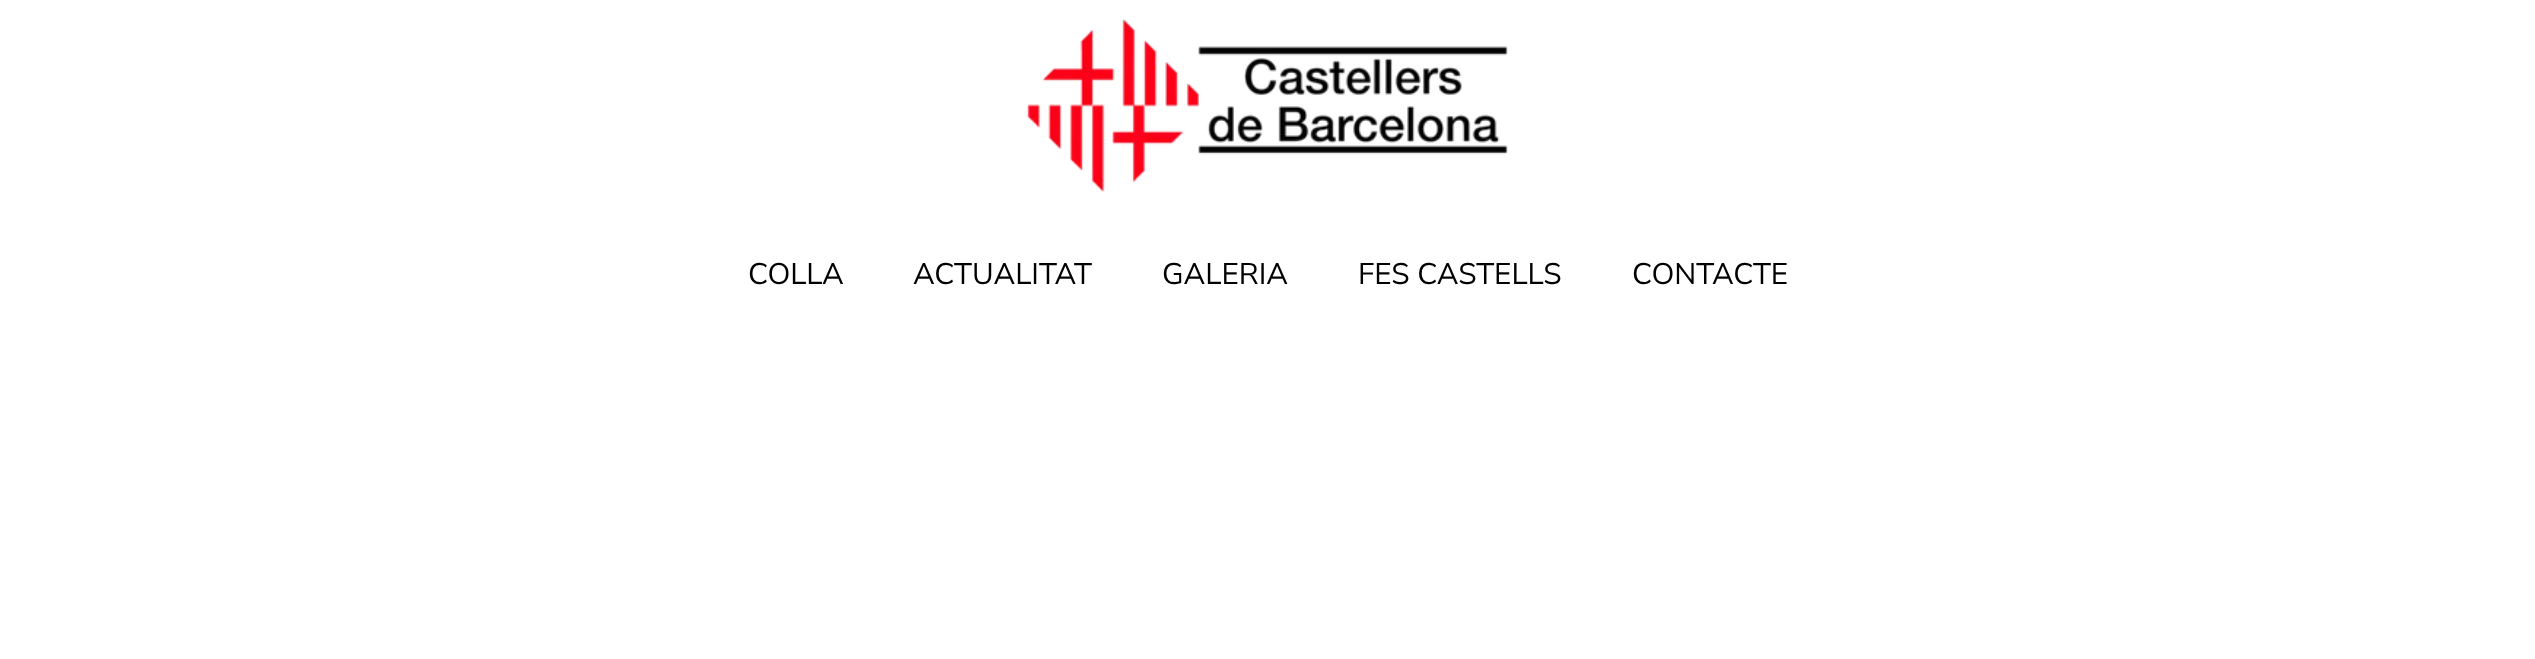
<svg xmlns="http://www.w3.org/2000/svg" width="2535" height="659" viewBox="0 0 2535 659">
  <rect width="100%" height="100%" fill="#ffffff"/>
  <image x="1026" y="18" width="482" height="175" href="img1.png"/>
  <text x="748" y="284" font-family="Nunito Sans" font-size="29.75" fill="#000000">COLLA</text>
  <text x="913" y="284" font-family="Nunito Sans" font-size="29.75" fill="#000000">ACTUALITAT</text>
  <text x="1162" y="284" font-family="Nunito Sans" font-size="29.75" fill="#000000">GALERIA</text>
  <text x="1358" y="284" font-family="Nunito Sans" font-size="29.75" fill="#000000">FES CASTELLS</text>
  <text x="1632" y="284" font-family="Nunito Sans" font-size="29.75" fill="#000000">CONTACTE</text>
</svg>
